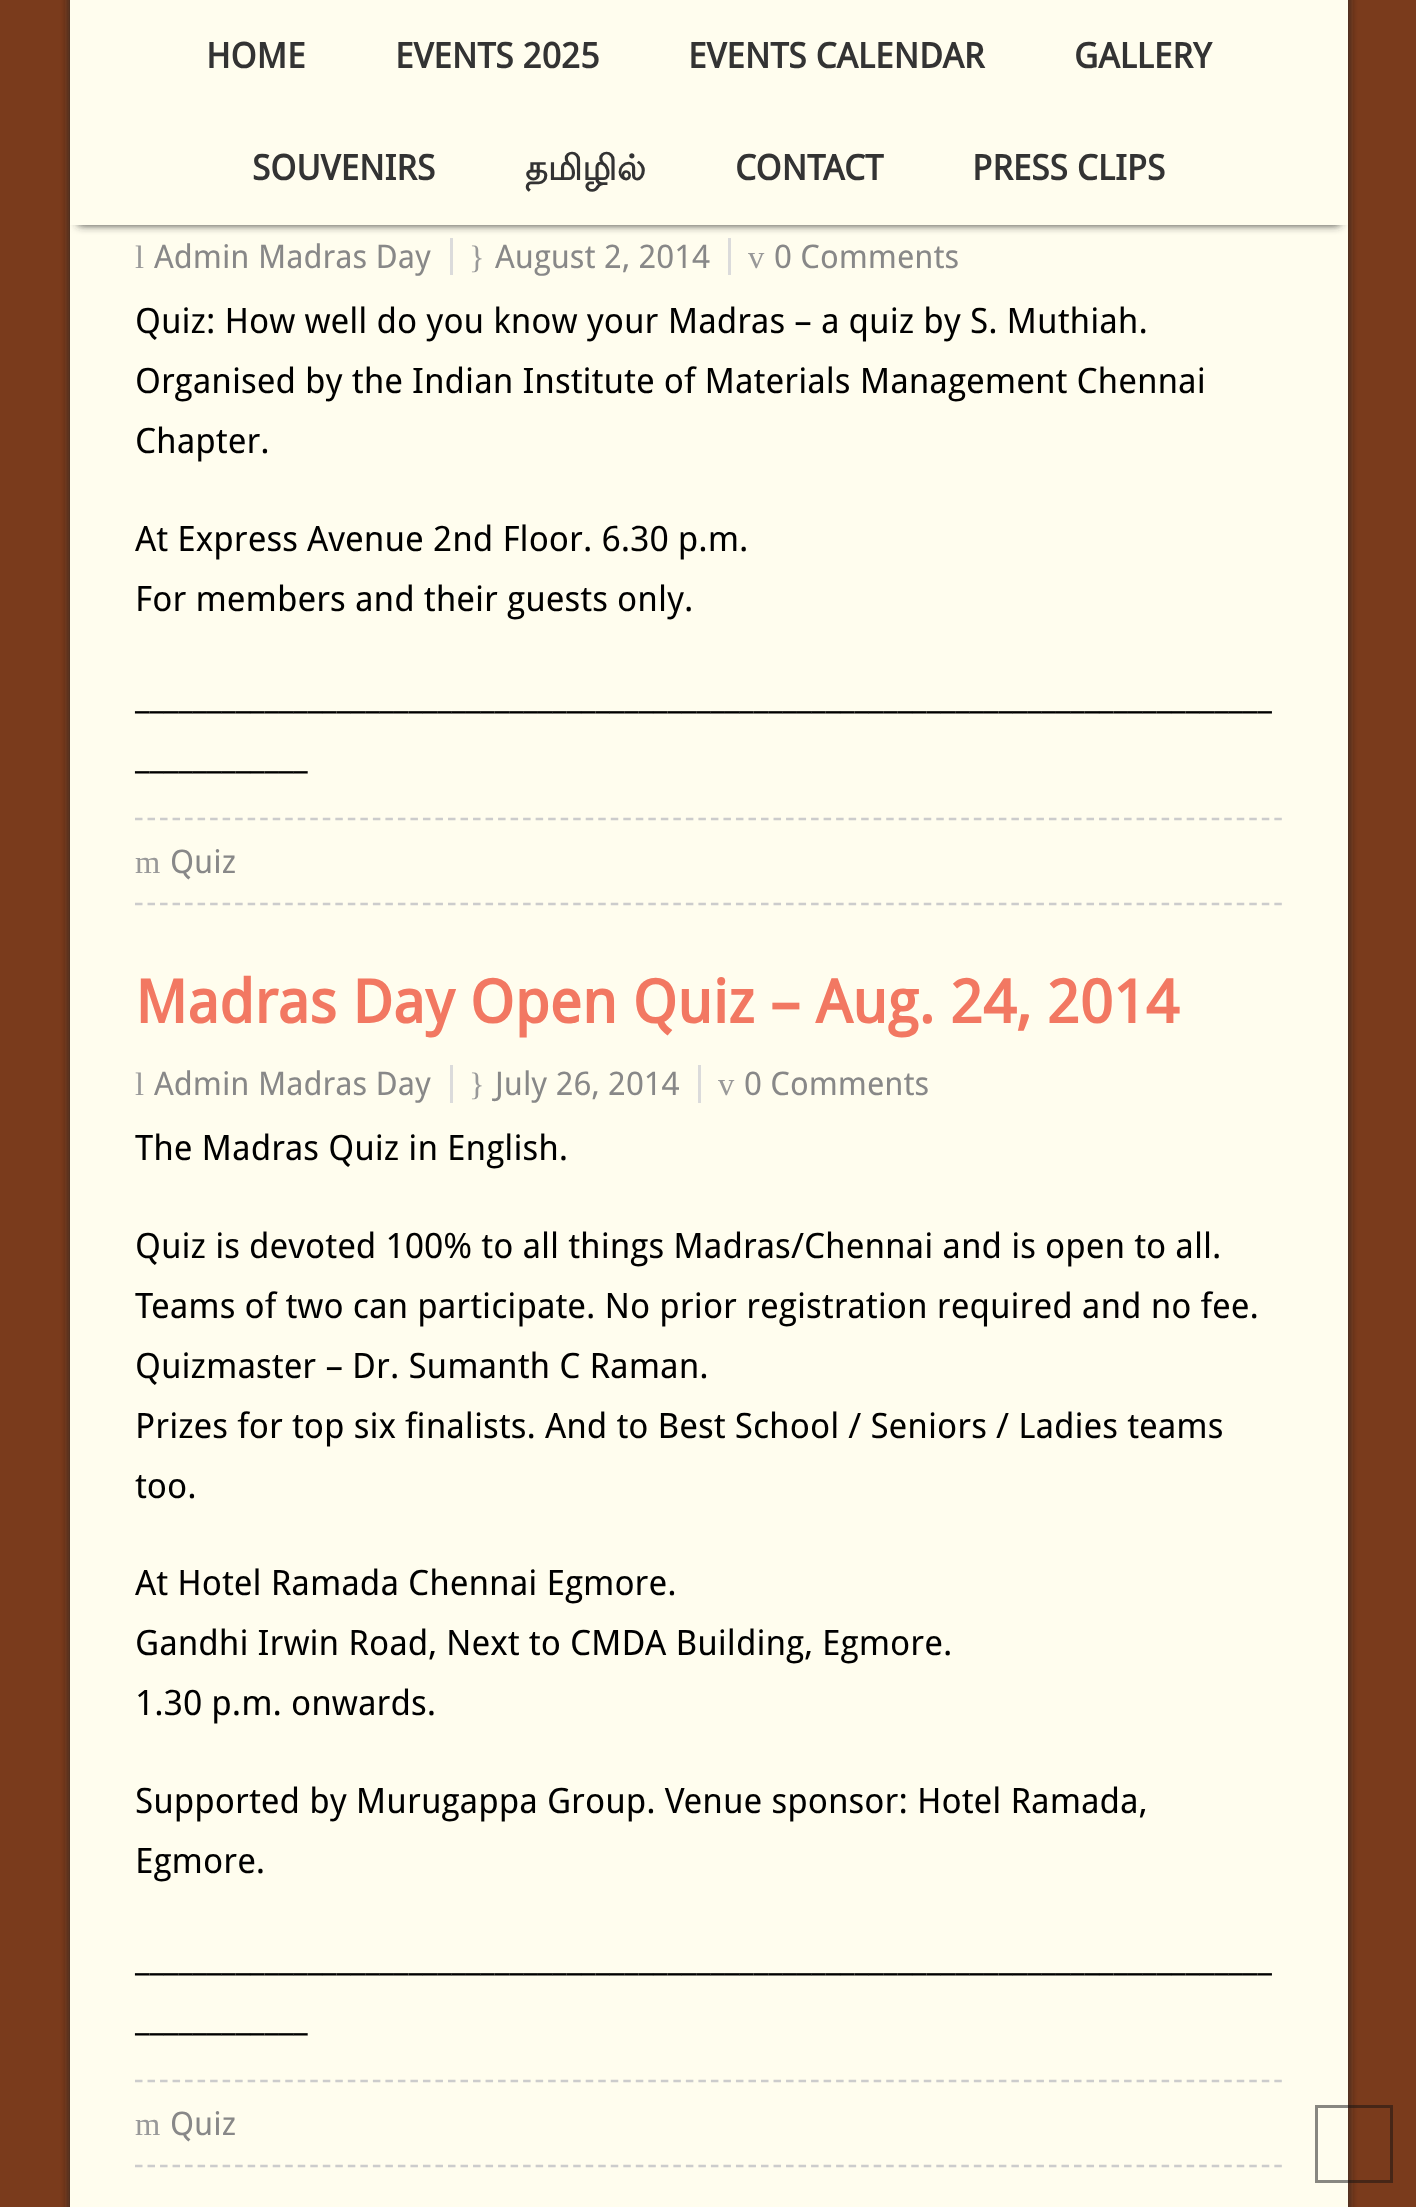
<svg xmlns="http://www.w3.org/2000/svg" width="1416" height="2207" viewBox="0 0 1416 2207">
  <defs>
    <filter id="blur1" x="-50%" y="-200%" width="200%" height="500%"><feGaussianBlur stdDeviation="5"/></filter>
    <filter id="blur2" x="-50%" y="-200%" width="200%" height="500%"><feGaussianBlur stdDeviation="4"/></filter>
  </defs>
  <rect width="100%" height="100%" fill="#7a3b1c"/>
  <rect x="70" y="-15" width="1258" height="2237" fill="#222222" filter="url(#blur1)"/>
  <rect x="90" y="-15" width="1258" height="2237" fill="#222222" filter="url(#blur1)"/>
  <rect x="70" y="225" width="1278" height="1982" fill="#fffdee"/>
  <rect x="78" y="15" width="1262" height="210" fill="#333333" filter="url(#blur2)"/>
  <rect x="70" y="0" width="1278" height="225" fill="#fffdee"/>
  <text x="206" y="68" font-family="Droid Sans" font-size="35" font-weight="bold" fill="#333333">HOME</text>
  <text x="395" y="68" font-family="Droid Sans" font-size="35" font-weight="bold" fill="#333333">EVENTS 2025</text>
  <text x="688" y="68" font-family="Droid Sans" font-size="35" font-weight="bold" fill="#333333">EVENTS CALENDAR</text>
  <text x="1074" y="68" font-family="Droid Sans" font-size="35" font-weight="bold" fill="#333333">GALLERY</text>
  <text x="252" y="180" font-family="Droid Sans" font-size="35" font-weight="bold" fill="#333333">SOUVENIRS</text>
  <text x="525" y="180" font-family="Lohit Tamil" font-size="35" font-weight="bold" fill="#333333">தமிழில்</text>
  <text x="735" y="180" font-family="Droid Sans" font-size="35" font-weight="bold" fill="#333333">CONTACT</text>
  <text x="972" y="180" font-family="Droid Sans" font-size="35" font-weight="bold" fill="#333333">PRESS CLIPS</text>
  <path d="M135 904H1282.5" fill="none" stroke="#cccccc" stroke-width="2.5" stroke-dasharray="7.5 5.02"/>
  <text x="135" y="268" font-family="Liberation Serif" font-size="32.5" fill="#999999">l</text>
  <text x="154" y="268" font-family="Droid Sans" font-size="32.5" fill="#888888">Admin Madras Day</text>
  <text x="469" y="268" font-family="Liberation Serif" font-size="32.5" fill="#999999">}</text>
  <rect x="450" y="238" width="3" height="37" fill="#dbdbdb"/>
  <text x="495" y="268" font-family="Droid Sans" font-size="32.5" fill="#888888">August 2, 2014</text>
  <text x="748" y="268" font-family="Liberation Serif" font-size="32.5" fill="#999999">v</text>
  <rect x="728" y="238" width="3" height="37" fill="#dbdbdb"/>
  <text x="774" y="268" font-family="Droid Sans" font-size="32.5" fill="#888888">0 Comments</text>
  <text x="135" y="333" font-family="Droid Sans" font-size="35" fill="#000000">Quiz: How well do you know your Madras – a quiz by S. Muthiah.</text>
  <text x="135" y="393" font-family="Droid Sans" font-size="35" fill="#000000">Organised by the Indian Institute of Materials Management Chennai</text>
  <text x="135" y="453" font-family="Droid Sans" font-size="35" fill="#000000">Chapter.</text>
  <text x="135" y="551" font-family="Droid Sans" font-size="35" fill="#000000">At Express Avenue 2nd Floor. 6.30 p.m.</text>
  <text x="135" y="611" font-family="Droid Sans" font-size="35" fill="#000000">For members and their guests only.</text>
  <text x="135" y="708" font-family="Droid Sans" font-size="35" fill="#000000">_______________________________________________________________________________</text>
  <text x="135" y="768" font-family="Droid Sans" font-size="35" fill="#000000">____________</text>
  <path d="M135 819H1282.5" fill="none" stroke="#cccccc" stroke-width="2.5" stroke-dasharray="7.5 5.02"/>
  <text x="135" y="873" font-family="Liberation Serif" font-size="32.5" fill="#999999">m</text>
  <text x="170" y="873" font-family="Droid Sans" font-size="32.5" fill="#888888">Quiz</text>
  <path d="M135 2166H1282.5" fill="none" stroke="#cccccc" stroke-width="2.5" stroke-dasharray="7.5 5.02"/>
  <text x="135" y="1023" font-family="Droid Sans" font-size="60" font-weight="bold" fill="#f27862">Madras Day Open Quiz – Aug. 24, 2014</text>
  <text x="135" y="1095" font-family="Liberation Serif" font-size="32.5" fill="#999999">l</text>
  <text x="154" y="1095" font-family="Droid Sans" font-size="32.5" fill="#888888">Admin Madras Day</text>
  <text x="469" y="1095" font-family="Liberation Serif" font-size="32.5" fill="#999999">}</text>
  <rect x="450" y="1065" width="3" height="38" fill="#dbdbdb"/>
  <text x="495" y="1095" font-family="Droid Sans" font-size="32.5" fill="#888888">July 26, 2014</text>
  <text x="718" y="1095" font-family="Liberation Serif" font-size="32.5" fill="#999999">v</text>
  <rect x="698" y="1065" width="3" height="38" fill="#dbdbdb"/>
  <text x="744" y="1095" font-family="Droid Sans" font-size="32.5" fill="#888888">0 Comments</text>
  <text x="135" y="1160" font-family="Droid Sans" font-size="35" fill="#000000">The Madras Quiz in English.</text>
  <text x="135" y="1258" font-family="Droid Sans" font-size="35" fill="#000000">Quiz is devoted 100% to all things Madras/Chennai and is open to all.</text>
  <text x="135" y="1318" font-family="Droid Sans" font-size="35" fill="#000000">Teams of two can participate. No prior registration required and no fee.</text>
  <text x="135" y="1378" font-family="Droid Sans" font-size="35" fill="#000000">Quizmaster – Dr. Sumanth C Raman.</text>
  <text x="135" y="1438" font-family="Droid Sans" font-size="35" fill="#000000">Prizes for top six finalists. And to Best School / Seniors / Ladies teams</text>
  <text x="135" y="1498" font-family="Droid Sans" font-size="35" fill="#000000">too.</text>
  <text x="135" y="1595" font-family="Droid Sans" font-size="35" fill="#000000">At Hotel Ramada Chennai Egmore.</text>
  <text x="135" y="1655" font-family="Droid Sans" font-size="35" fill="#000000">Gandhi Irwin Road, Next to CMDA Building, Egmore.</text>
  <text x="135" y="1715" font-family="Droid Sans" font-size="35" fill="#000000">1.30 p.m. onwards.</text>
  <text x="135" y="1813" font-family="Droid Sans" font-size="35" fill="#000000">Supported by Murugappa Group. Venue sponsor: Hotel Ramada,</text>
  <text x="135" y="1873" font-family="Droid Sans" font-size="35" fill="#000000">Egmore.</text>
  <text x="135" y="1970" font-family="Droid Sans" font-size="35" fill="#000000">_______________________________________________________________________________</text>
  <text x="135" y="2030" font-family="Droid Sans" font-size="35" fill="#000000">____________</text>
  <path d="M135 2081H1282.5" fill="none" stroke="#cccccc" stroke-width="2.5" stroke-dasharray="7.5 5.02"/>
  <text x="135" y="2135" font-family="Liberation Serif" font-size="32.5" fill="#999999">m</text>
  <text x="170" y="2135" font-family="Droid Sans" font-size="32.5" fill="#888888">Quiz</text>
  <rect x="1316.5" y="2106.5" width="75" height="75" fill="none" stroke="#111111" stroke-opacity="0.5" stroke-width="3"/>
</svg>
